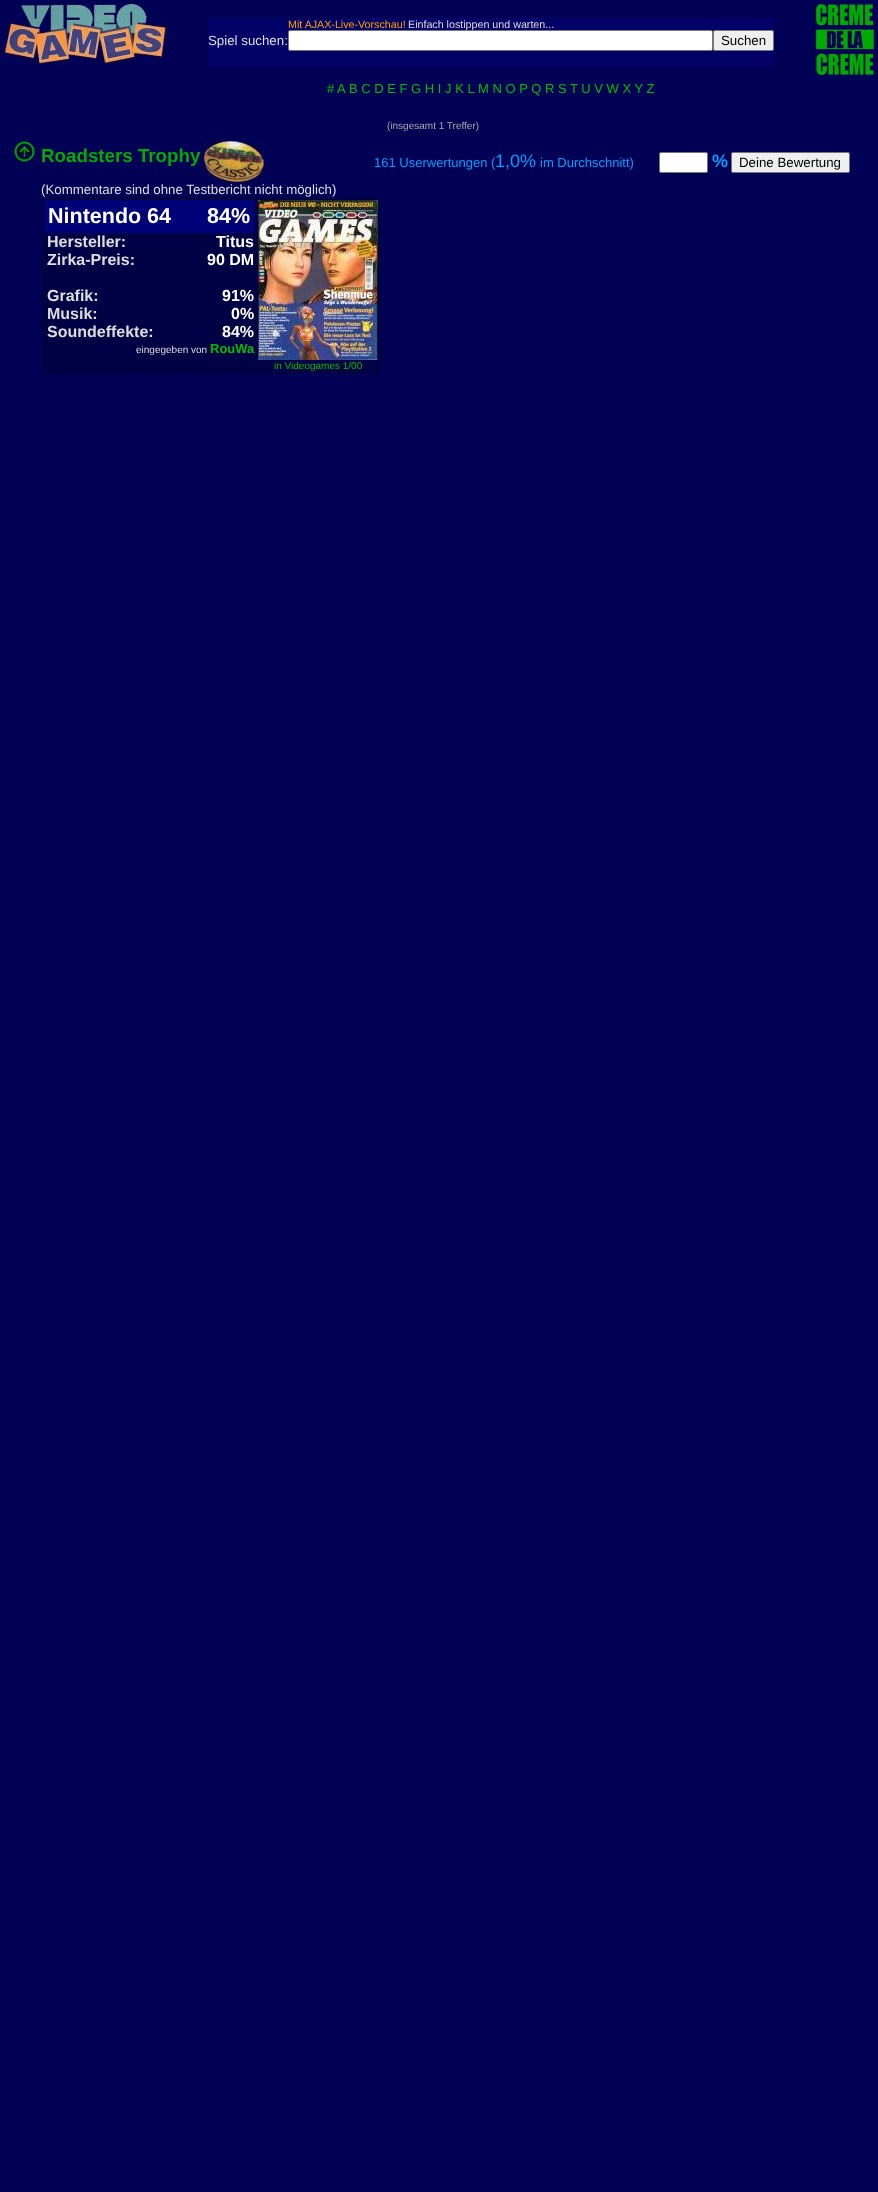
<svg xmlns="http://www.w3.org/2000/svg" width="878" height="2192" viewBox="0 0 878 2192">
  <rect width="100%" height="100%" fill="#000055"/>
  <image x="3" y="3" width="164" height="62" href="img1.png"/>
  <rect x="208" y="18" width="566" height="48" fill="#000066"/>
  <text x="288" y="28" font-family="Liberation Sans" font-size="10.7" fill="#ffa500">Mit AJAX-Live-Vorschau!</text>
  <text x="408" y="28" font-family="Liberation Sans" font-size="10.7" fill="#dddddd">Einfach lostippen und warten...</text>
  <text x="208" y="45" font-family="Liberation Sans" font-size="13.3" fill="#dddddd">Spiel suchen:</text>
  <rect x="288.5" y="30.5" width="424" height="20" rx="1.5" fill="#ffffff" stroke="#767676"/>
  <rect x="713.5" y="30.5" width="60" height="20" rx="1.5" fill="#efefef" stroke="#767676"/>
  <text x="721" y="45" font-family="Liberation Sans" font-size="13.3" fill="#000000">Suchen</text>
  <text x="327" y="93" font-family="Liberation Sans" font-size="13" fill="#00bb00">#</text>
  <text x="337" y="93" font-family="Liberation Sans" font-size="13" fill="#00bb00">A</text>
  <text x="349" y="93" font-family="Liberation Sans" font-size="13" fill="#00bb00">B C D E F G H I J K L</text>
  <text x="478" y="93" font-family="Liberation Sans" font-size="13" fill="#00bb00">M N O P Q R S T U V W X Y Z</text>
  <image x="815" y="3" width="59" height="73" href="img2.png"/>
  <text x="387" y="129" font-family="Liberation Sans" font-size="10" fill="#aaaaaa">(insgesamt 1 Treffer)</text>
  <image x="14" y="141" width="21" height="21" href="img3.png"/>
  <text x="41" y="162" font-family="Liberation Sans" font-size="18.75" font-weight="bold" fill="#00aa00">Roadsters Trophy</text>
  <image x="204" y="141" width="60" height="41" href="img4.png"/>
  <text x="374" y="167" font-family="Liberation Sans" font-size="13" fill="#009fff">161 Userwertungen (</text>
  <text x="495" y="167" font-family="Liberation Sans" font-size="18" fill="#009fff">1,0%</text>
  <text x="540" y="167" font-family="Liberation Sans" font-size="13" fill="#009fff">im Durchschnitt)</text>
  <rect x="659.5" y="152.5" width="48" height="20" rx="1.5" fill="#ffffff" stroke="#767676"/>
  <text x="712" y="167" font-family="Liberation Sans" font-size="18" font-weight="bold" fill="#009fff">%</text>
  <rect x="731.5" y="152.5" width="118" height="20" rx="1.5" fill="#efefef" stroke="#767676"/>
  <text x="739" y="167" font-family="Liberation Sans" font-size="13.3" fill="#000000">Deine Bewertung</text>
  <text x="41" y="194" font-family="Liberation Sans" font-size="13.3" fill="#dddddd">(Kommentare sind ohne Testbericht nicht möglich)</text>
  <rect x="41" y="197" width="340" height="177" fill="#000044"/>
  <rect x="44" y="200" width="210" height="33" fill="#000077"/>
  <text x="48" y="223" font-family="Liberation Sans" font-size="21.5" font-weight="bold" fill="#ffffff">Nintendo 64</text>
  <text x="207" y="223" font-family="Liberation Sans" font-size="21.5" font-weight="bold" fill="#ffffff">84%</text>
  <text x="47" y="247" font-family="Liberation Sans" font-size="16" font-weight="bold" fill="#dddddd">Hersteller:</text>
  <text x="216" y="247" font-family="Liberation Sans" font-size="16" font-weight="bold" fill="#ffffff">Titus</text>
  <text x="47" y="265" font-family="Liberation Sans" font-size="16" font-weight="bold" fill="#dddddd">Zirka-Preis:</text>
  <text x="207" y="265" font-family="Liberation Sans" font-size="16" font-weight="bold" fill="#ffffff">90 DM</text>
  <text x="47" y="301" font-family="Liberation Sans" font-size="16" font-weight="bold" fill="#dddddd">Grafik:</text>
  <text x="222" y="301" font-family="Liberation Sans" font-size="16" font-weight="bold" fill="#ffffff">91%</text>
  <text x="47" y="319" font-family="Liberation Sans" font-size="16" font-weight="bold" fill="#dddddd">Musik:</text>
  <text x="231" y="319" font-family="Liberation Sans" font-size="16" font-weight="bold" fill="#ffffff">0%</text>
  <text x="47" y="337" font-family="Liberation Sans" font-size="16" font-weight="bold" fill="#dddddd">Soundeffekte:</text>
  <text x="222" y="337" font-family="Liberation Sans" font-size="16" font-weight="bold" fill="#ffffff">84%</text>
  <text x="136" y="353" font-family="Liberation Sans" font-size="10" fill="#dddddd">eingegeben von</text>
  <text x="210" y="353" font-family="Liberation Sans" font-size="13" font-weight="bold" fill="#00bb00">RouWa</text>
  <image x="258" y="200" width="120" height="160" href="img5.png"/>
  <text x="274" y="369" font-family="Liberation Sans" font-size="10" fill="#00bb00">in Videogames 1/00</text>
</svg>
